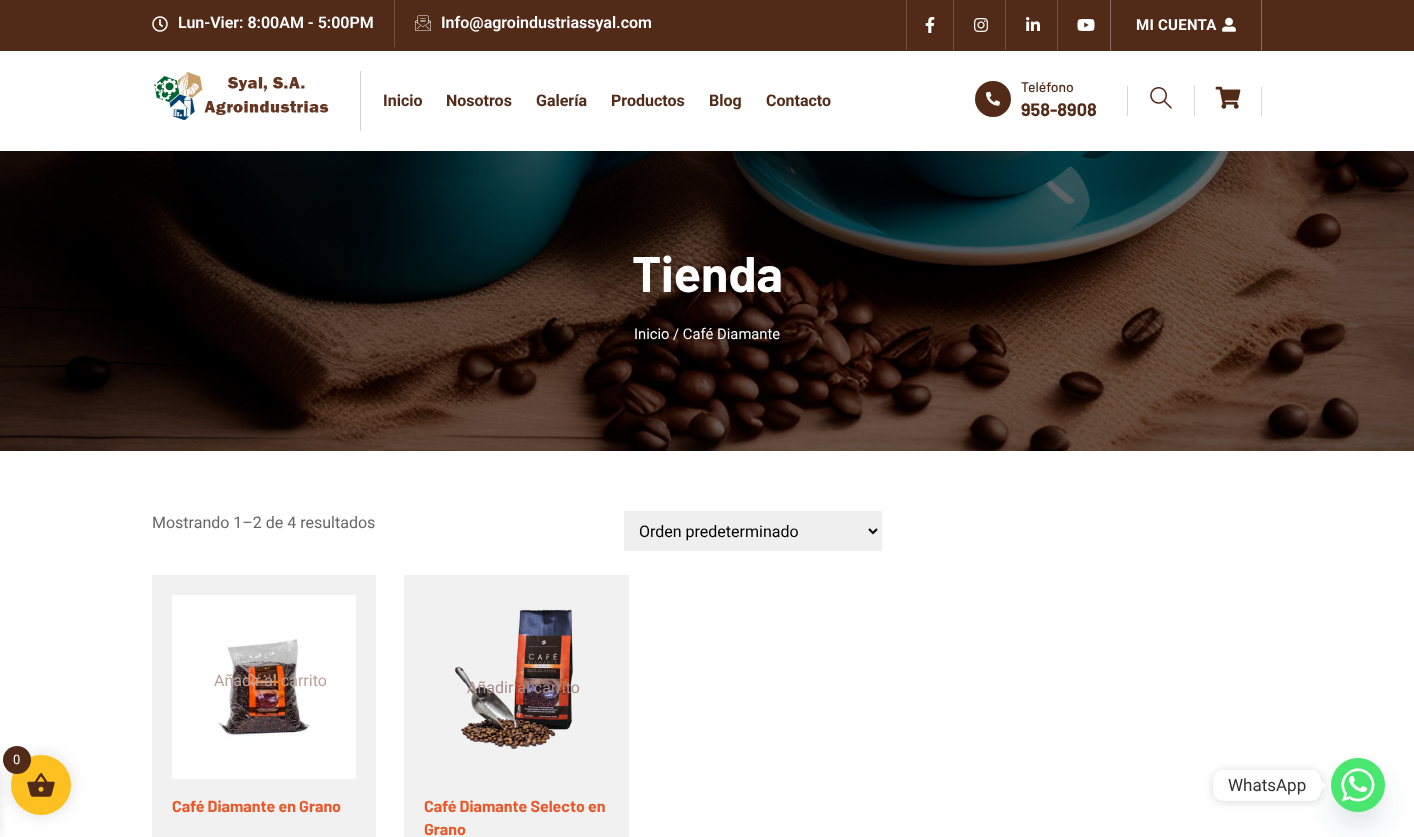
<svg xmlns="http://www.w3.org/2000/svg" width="1414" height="837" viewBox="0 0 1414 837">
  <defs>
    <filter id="blur1" x="-50%" y="-200%" width="200%" height="500%"><feGaussianBlur stdDeviation="5"/></filter>
    <filter id="blur2" x="-50%" y="-200%" width="200%" height="500%"><feGaussianBlur stdDeviation="7.5"/></filter>
    <filter id="blur3" x="-50%" y="-200%" width="200%" height="500%"><feGaussianBlur stdDeviation="12"/></filter>
    <filter id="blur4" x="-50%" y="-200%" width="200%" height="500%"><feGaussianBlur stdDeviation="4"/></filter>
  </defs>
  <rect width="100%" height="100%" fill="#ffffff"/>
  <rect x="0" y="0" width="1414" height="51" fill="#522a18"/>
  <rect x="394" y="0" width="1" height="47" fill="#715042"/>
  <image x="152" y="16" width="16" height="16" href="img1.png"/>
  <text x="178" y="28" font-family="Roboto" font-size="16" font-weight="600" fill="#ffffff">Lun-Vier: 8:00AM - 5:00PM</text>
  <image x="415" y="15" width="16" height="16" href="img2.png"/>
  <text x="441" y="28" font-family="Roboto" font-size="16" font-weight="600" fill="#ffffff">Info@agroindustriassyal.com</text>
  <rect x="953" y="0" width="1" height="50" fill="#715042"/>
  <rect x="906" y="0" width="1" height="50" fill="#715042"/>
  <image x="925" y="17" width="10" height="16" href="img3.png"/>
  <rect x="1005" y="0" width="1" height="50" fill="#715042"/>
  <image x="974" y="18" width="14" height="14" href="img4.png"/>
  <rect x="1057" y="0" width="1" height="50" fill="#715042"/>
  <image x="1026" y="17" width="14" height="14" href="img5.png"/>
  <image x="1077" y="19" width="18" height="12" href="img6.png"/>
  <rect x="1261" y="0" width="1" height="51" fill="#886c60"/>
  <rect x="1110" y="0" width="1" height="51" fill="#886c60"/>
  <text x="1136" y="30" font-family="Roboto" font-size="15" font-weight="bold" letter-spacing="0.25" fill="#ffffff">MI CUENTA</text>
  <image x="1222" y="17" width="14" height="15" href="img7.png"/>
  <rect x="360" y="71" width="1" height="60" fill="#d1d1d1"/>
  <image x="154" y="72" width="175" height="48" href="img8.png"/>
  <text x="383" y="106" font-family="Roboto" font-size="16" font-weight="bold" fill="#522a18">Inicio</text>
  <text x="446" y="106" font-family="Roboto" font-size="16" font-weight="bold" fill="#522a18">Nosotros</text>
  <text x="536" y="106" font-family="Roboto" font-size="16" font-weight="bold" fill="#522a18">Galería</text>
  <text x="611" y="106" font-family="Roboto" font-size="16" font-weight="bold" fill="#522a18">Productos</text>
  <text x="709" y="106" font-family="Roboto" font-size="16" font-weight="bold" fill="#522a18">Blog</text>
  <text x="766" y="106" font-family="Roboto" font-size="16" font-weight="bold" fill="#522a18">Contacto</text>
  <circle cx="993" cy="99" r="18" fill="#522a18"/>
  <image x="986" y="91" width="14" height="15" href="img9.png"/>
  <text x="1021" y="92" font-family="Barlow" font-size="14" font-weight="500" fill="#522a18">Teléfono</text>
  <text x="1021" y="116" font-family="Barlow" font-size="18" font-weight="bold" fill="#522a18">958-8908</text>
  <rect x="1194" y="86" width="1" height="30" fill="#d6d6d6"/>
  <rect x="1127" y="86" width="1" height="30" fill="#d6d6d6"/>
  <image x="1150" y="87" width="22" height="22" href="img10.png"/>
  <rect x="1261" y="87" width="1" height="29" fill="#d6d6d6"/>
  <image x="1215" y="86" width="26" height="23" href="img11.png"/>
  <image x="0" y="151" width="1414" height="300" href="img12.png"/>
  <text x="632" y="292" font-family="Barlow" font-size="50" font-weight="bold" fill="#ffffff">Tienda</text>
  <text x="634" y="339" font-family="Roboto" font-size="14.75" fill="#ffffff">Inicio / Café Diamante</text>
  <rect x="-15" y="768" width="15" height="68" fill="#000000" fill-opacity="0.1" filter="url(#blur1)"/>
  <rect x="9" y="753" width="64" height="64" rx="32" fill="#000000" fill-opacity="0.1" filter="url(#blur2)"/>
  <circle cx="41" cy="785" r="30" fill="#fcc020"/>
  <image x="27" y="773" width="28" height="24" href="img13.png"/>
  <circle cx="17" cy="760" r="14" fill="#522a18"/>
  <text x="13" y="764" font-family="Roboto" font-size="13" fill="#ffffff">0</text>
  <text x="152" y="528" font-family="Roboto" font-size="16" fill="#666666">Mostrando 1–2 de 4 resultados</text>
  <rect x="624" y="511" width="258" height="40" fill="#efefef"/>
  <path d="M869 529L873 533L877 529" fill="none" stroke="#000000" stroke-width="2"/>
  <text x="639" y="537" font-family="Roboto" font-size="16" fill="#000000">Orden predeterminado</text>
  <rect x="152" y="575" width="224" height="262" fill="#f1f1f1"/>
  <image x="172" y="595" width="184" height="184" href="img14.png"/>
  <text x="214" y="686" font-family="Roboto" font-size="16" fill="#bca095">Añadir al carrito</text>
  <text x="172" y="812" font-family="Barlow" font-size="16" font-weight="bold" fill="#ea5729">Café Diamante en Grano</text>
  <rect x="404" y="575" width="225" height="262" fill="#f1f1f1"/>
  <image x="455" y="609" width="118" height="141" href="img15.png"/>
  <text x="467" y="693" font-family="Roboto" font-size="16" fill="#a68c8b">Añadir al carrito</text>
  <text x="424" y="812" font-family="Barlow" font-size="16" font-weight="bold" fill="#ea5729">Café Diamante Selecto en</text>
  <text x="424" y="835" font-family="Barlow" font-size="16" font-weight="bold" fill="#ea5729">Grano</text>
  <rect x="1331" y="774" width="54" height="54" rx="27" fill="#49687e" fill-opacity="0.16" filter="url(#blur3)"/>
  <image x="1331" y="758" width="54" height="54" href="img16.png"/>
  <rect x="1213" y="771" width="108" height="31" rx="10" fill="#000000" fill-opacity="0.15" filter="url(#blur4)"/>
  <rect x="1213" y="770" width="108" height="31" rx="10" fill="#ffffff"/>
  <text x="1228" y="791" font-family="Roboto" font-size="17" fill="#333333">WhatsApp</text>
  <path d="M1321 790.5V780.5L1326 785.5Z" fill="#ffffff"/>
</svg>
